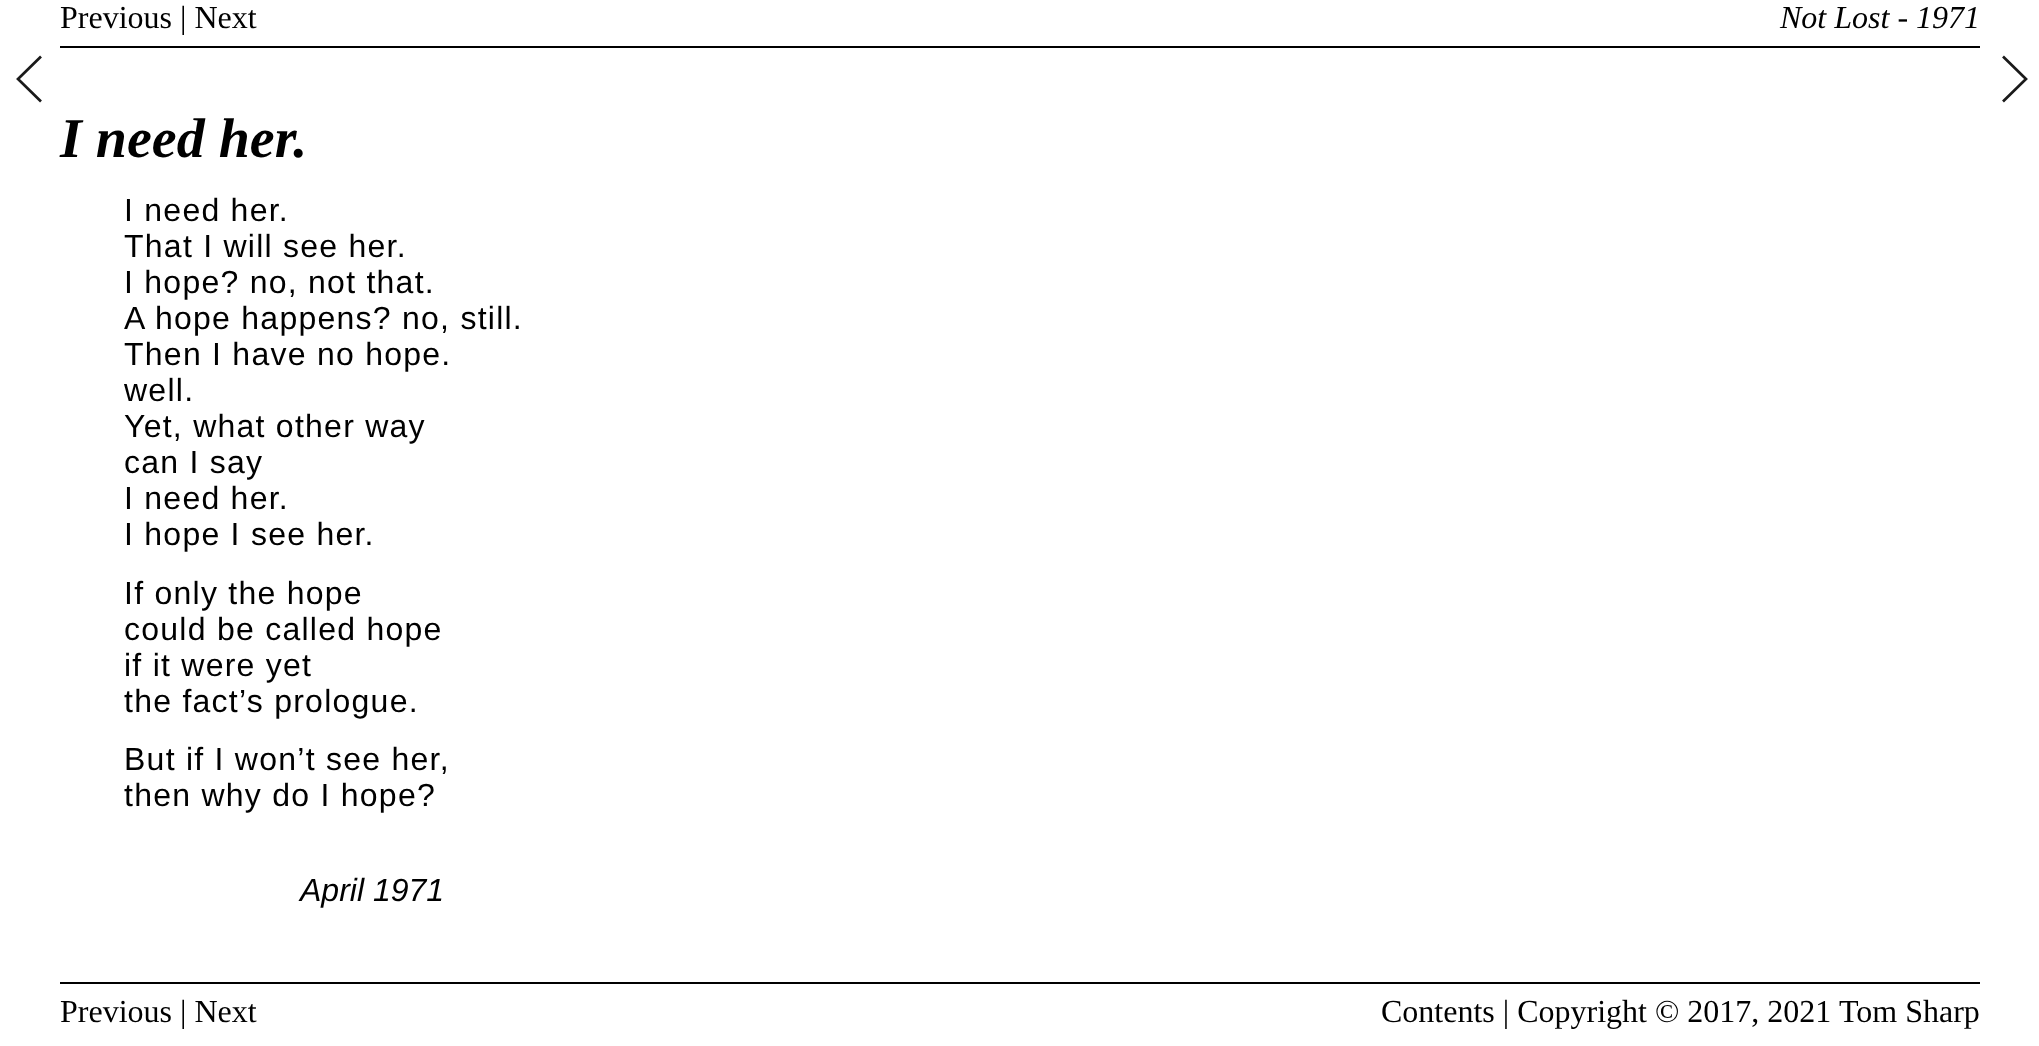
<svg xmlns="http://www.w3.org/2000/svg" width="2039" height="1046" viewBox="0 0 2039 1046">
  <rect width="100%" height="100%" fill="#ffffff"/>
  <rect x="60" y="46" width="1920" height="2" fill="#000000"/>
  <text x="60" y="28" font-family="Liberation Serif" font-size="32" fill="#000000">Previous | Next</text>
  <text x="1780" y="28" font-family="Liberation Serif" font-size="32" font-style="italic" fill="#000000">Not Lost - 1971</text>
  <path d="M41 56.5L18 79L41 101.5" fill="none" stroke="#1a1a1a" stroke-width="2.7"/>
  <path d="M2003 101.5L2026 79L2003 56.5" fill="none" stroke="#1a1a1a" stroke-width="2.7"/>
  <text x="60" y="157" font-family="Liberation Serif" font-size="56" font-weight="bold" font-style="italic" fill="#000000">I need her.</text>
  <text x="124" y="221" font-family="Liberation Sans" font-size="32" letter-spacing="1.25" fill="#000000">I need her.</text>
  <text x="124" y="257" font-family="Liberation Sans" font-size="32" letter-spacing="1.25" fill="#000000">That I will see her.</text>
  <text x="124" y="293" font-family="Liberation Sans" font-size="32" letter-spacing="1.25" fill="#000000">I hope? no, not that.</text>
  <text x="124" y="329" font-family="Liberation Sans" font-size="32" letter-spacing="1.25" fill="#000000">A hope happens? no, still.</text>
  <text x="124" y="365" font-family="Liberation Sans" font-size="32" letter-spacing="1.25" fill="#000000">Then I have no hope.</text>
  <text x="124" y="401" font-family="Liberation Sans" font-size="32" letter-spacing="1.25" fill="#000000">well.</text>
  <text x="124" y="437" font-family="Liberation Sans" font-size="32" letter-spacing="1.25" fill="#000000">Yet, what other way</text>
  <text x="124" y="473" font-family="Liberation Sans" font-size="32" letter-spacing="1.25" fill="#000000">can I say</text>
  <text x="124" y="509" font-family="Liberation Sans" font-size="32" letter-spacing="1.25" fill="#000000">I need her.</text>
  <text x="124" y="545" font-family="Liberation Sans" font-size="32" letter-spacing="1.25" fill="#000000">I hope I see her.</text>
  <text x="124" y="604" font-family="Liberation Sans" font-size="32" letter-spacing="1.25" fill="#000000">If only the hope</text>
  <text x="124" y="640" font-family="Liberation Sans" font-size="32" letter-spacing="1.25" fill="#000000">could be called hope</text>
  <text x="124" y="676" font-family="Liberation Sans" font-size="32" letter-spacing="1.25" fill="#000000">if it were yet</text>
  <text x="124" y="712" font-family="Liberation Sans" font-size="32" letter-spacing="1.25" fill="#000000">the fact’s prologue.</text>
  <text x="124" y="770" font-family="Liberation Sans" font-size="32" letter-spacing="1.25" fill="#000000">But if I won’t see her,</text>
  <text x="124" y="806" font-family="Liberation Sans" font-size="32" letter-spacing="1.25" fill="#000000">then why do I hope?</text>
  <text x="300" y="901" font-family="Liberation Sans" font-size="32" font-style="italic" fill="#000000">April 1971</text>
  <rect x="60" y="982" width="1920" height="2" fill="#000000"/>
  <text x="60" y="1022" font-family="Liberation Serif" font-size="32" fill="#000000">Previous | Next</text>
  <text x="1381" y="1022" font-family="Liberation Serif" font-size="32" fill="#000000">Contents | Copyright © 2017, 2021</text>
  <text x="1839" y="1022" font-family="Liberation Serif" font-size="32" fill="#000000">Tom Sharp</text>
</svg>
